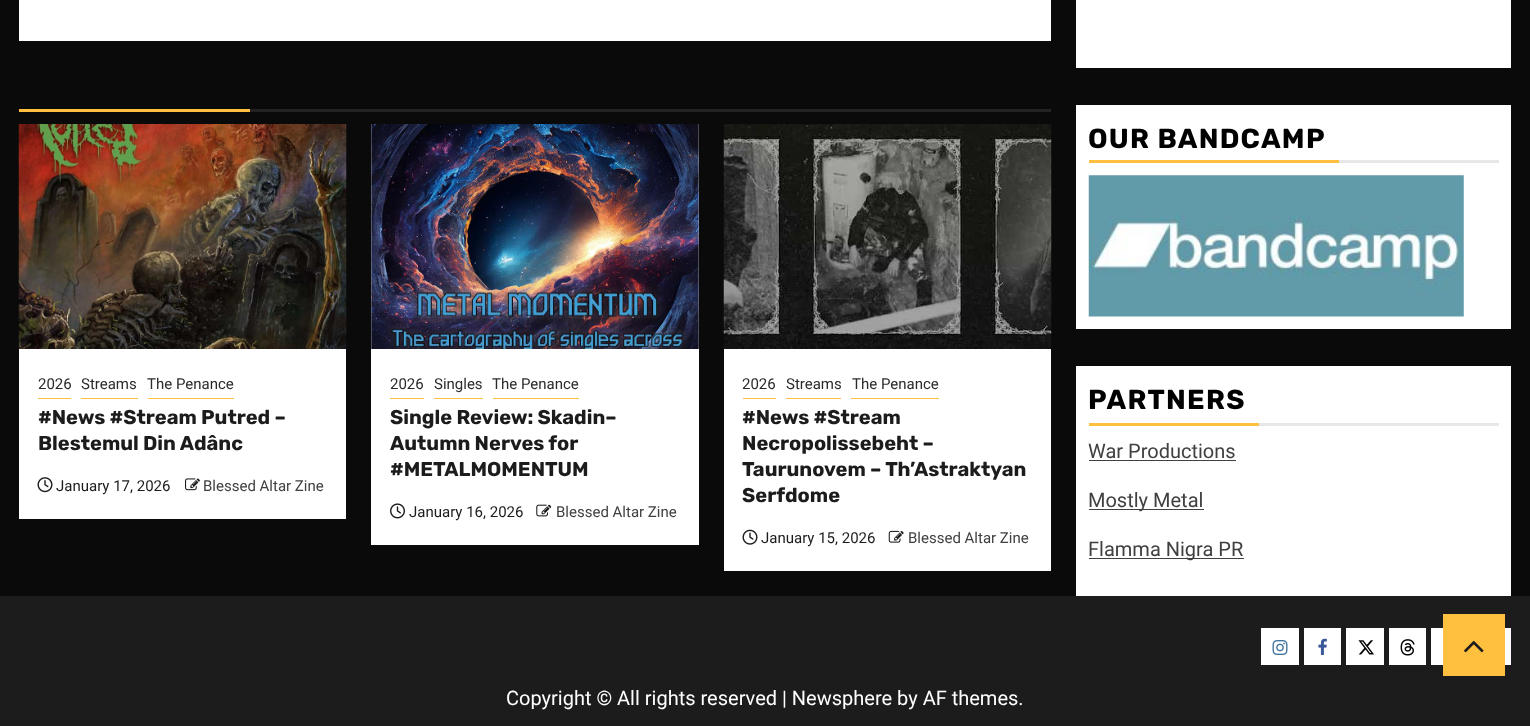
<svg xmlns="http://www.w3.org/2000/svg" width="1530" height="726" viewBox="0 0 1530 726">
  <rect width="100%" height="100%" fill="#0a0a0a"/>
  <rect x="19" y="0" width="1032" height="41" fill="#ffffff"/>
  <rect x="19" y="109" width="231" height="3" fill="#ffbf3f"/>
  <rect x="250" y="109" width="801" height="3" fill="#232323"/>
  <rect x="19" y="349" width="327" height="170" fill="#ffffff"/>
  <image x="18" y="124" width="329" height="225" href="img1.png"/>
  <rect x="38" y="398" width="33" height="1" fill="#ffbf3f"/>
  <text x="38" y="389" font-family="Roboto" font-size="15" fill="#2b2b2b">2026</text>
  <rect x="81" y="398" width="57" height="1" fill="#ffbf3f"/>
  <text x="81" y="389" font-family="Roboto" font-size="15" fill="#2b2b2b">Streams</text>
  <rect x="148" y="398" width="86" height="1" fill="#ffbf3f"/>
  <text x="147" y="389" font-family="Roboto" font-size="15" fill="#2b2b2b">The Penance</text>
  <text x="38" y="424" font-family="Rubik" font-size="20" font-weight="bold" fill="#1c1c1c">#News #Stream Putred –</text>
  <text x="38" y="450" font-family="Rubik" font-size="20" font-weight="bold" fill="#1c1c1c">Blestemul Din Adânc</text>
  <image x="37" y="477" width="16" height="16" href="img2.png"/>
  <text x="56" y="491" font-family="Roboto" font-size="15" fill="#1c1c1c">January 17, 2026</text>
  <image x="185" y="478" width="15" height="13" href="img3.png"/>
  <text x="203" y="491" font-family="Roboto" font-size="15" fill="#404040">Blessed Altar Zine</text>
  <rect x="371" y="124" width="328" height="421" fill="#ffffff"/>
  <image x="371" y="124" width="328" height="225" href="img4.png"/>
  <rect x="390" y="398" width="34" height="1" fill="#ffbf3f"/>
  <text x="390" y="389" font-family="Roboto" font-size="15" fill="#2b2b2b">2026</text>
  <rect x="434" y="398" width="49" height="1" fill="#ffbf3f"/>
  <text x="434" y="389" font-family="Roboto" font-size="15" fill="#2b2b2b">Singles</text>
  <rect x="493" y="398" width="86" height="1" fill="#ffbf3f"/>
  <text x="492" y="389" font-family="Roboto" font-size="15" fill="#2b2b2b">The Penance</text>
  <text x="390" y="424" font-family="Rubik" font-size="20" font-weight="bold" fill="#1c1c1c">Single Review: Skadin–</text>
  <text x="390" y="450" font-family="Rubik" font-size="20" font-weight="bold" fill="#1c1c1c">Autumn Nerves for</text>
  <text x="390" y="476" font-family="Rubik" font-size="20" font-weight="bold" fill="#1c1c1c">#METALMOMENTUM</text>
  <image x="390" y="503" width="15" height="16" href="img5.png"/>
  <text x="409" y="517" font-family="Roboto" font-size="15" fill="#1c1c1c">January 16, 2026</text>
  <image x="536" y="504" width="16" height="13" href="img6.png"/>
  <text x="556" y="517" font-family="Roboto" font-size="15" fill="#404040">Blessed Altar Zine</text>
  <rect x="724" y="349" width="327" height="222" fill="#ffffff"/>
  <image x="723" y="124" width="329" height="225" href="img7.png"/>
  <rect x="743" y="398" width="33" height="1" fill="#ffbf3f"/>
  <text x="742" y="389" font-family="Roboto" font-size="15" fill="#2b2b2b">2026</text>
  <rect x="786" y="398" width="55" height="1" fill="#ffbf3f"/>
  <text x="786" y="389" font-family="Roboto" font-size="15" fill="#2b2b2b">Streams</text>
  <rect x="851" y="398" width="88" height="1" fill="#ffbf3f"/>
  <text x="852" y="389" font-family="Roboto" font-size="15" fill="#2b2b2b">The Penance</text>
  <text x="742" y="424" font-family="Rubik" font-size="20" font-weight="bold" fill="#1c1c1c">#News #Stream</text>
  <text x="742" y="450" font-family="Rubik" font-size="20" font-weight="bold" fill="#1c1c1c">Necropolissebeht –</text>
  <text x="742" y="476" font-family="Rubik" font-size="20" font-weight="bold" fill="#1c1c1c">Taurunovem – Th’Astraktyan</text>
  <text x="742" y="502" font-family="Rubik" font-size="20" font-weight="bold" fill="#1c1c1c">Serfdome</text>
  <image x="742" y="529" width="16" height="16" href="img8.png"/>
  <text x="761" y="543" font-family="Roboto" font-size="15" fill="#1c1c1c">January 15, 2026</text>
  <image x="888" y="530" width="16" height="13" href="img9.png"/>
  <text x="908" y="543" font-family="Roboto" font-size="15" fill="#404040">Blessed Altar Zine</text>
  <rect x="1076" y="0" width="435" height="68" fill="#ffffff"/>
  <rect x="1076" y="105" width="435" height="224" fill="#ffffff"/>
  <rect x="1089" y="160" width="250" height="3" fill="#ffbf3f"/>
  <text x="1088" y="148" font-family="Rubik" font-size="27.5" font-weight="bold" letter-spacing="1.25" fill="#000000">OUR BANDCAMP</text>
  <rect x="1339" y="160" width="160" height="3" fill="#e7e7e7"/>
  <image x="1088" y="175" width="376" height="142" href="img10.png"/>
  <rect x="1076" y="366" width="435" height="230" fill="#ffffff"/>
  <rect x="1089" y="423" width="170" height="3" fill="#ffbf3f"/>
  <text x="1088" y="409" font-family="Rubik" font-size="27.5" font-weight="bold" letter-spacing="1.25" fill="#000000">PARTNERS</text>
  <rect x="1259" y="423" width="240" height="3" fill="#e7e7e7"/>
  <text x="1088" y="458" font-family="Roboto" font-size="20" fill="#404040">War Productions</text>
  <rect x="1089" y="460" width="147" height="1" fill="#404040"/>
  <rect x="1089" y="509" width="115" height="1" fill="#404040"/>
  <text x="1088" y="507" font-family="Roboto" font-size="20" fill="#404040">Mostly Metal</text>
  <rect x="1089" y="558" width="155" height="1" fill="#404040"/>
  <text x="1088" y="556" font-family="Roboto" font-size="20" fill="#404040">Flamma Nigra PR</text>
  <rect x="0" y="596" width="1530" height="130" fill="#1c1c1c"/>
  <rect x="1261" y="628" width="38" height="37" fill="#ffffff"/>
  <image x="1272" y="640" width="16" height="15" href="img11.png"/>
  <rect x="1304" y="628" width="37" height="37" fill="#ffffff"/>
  <image x="1318" y="638" width="9" height="17" href="img12.png"/>
  <rect x="1346" y="628" width="38" height="37" fill="#ffffff"/>
  <image x="1358" y="640" width="16" height="15" href="img13.png"/>
  <rect x="1389" y="628" width="37" height="37" fill="#ffffff"/>
  <image x="1400" y="639" width="15" height="17" href="img14.png"/>
  <rect x="1431" y="628" width="12" height="37" fill="#ffffff"/>
  <rect x="1505" y="628" width="6" height="37" fill="#ffffff"/>
  <text x="506" y="705" font-family="Roboto" font-size="20" fill="#ffffff">Copyright © All rights reserved | Newsphere by AF themes.</text>
  <rect x="1443" y="614" width="62" height="62" fill="#ffbf3f"/>
  <image x="1464" y="640" width="20" height="13" href="img15.png"/>
</svg>
